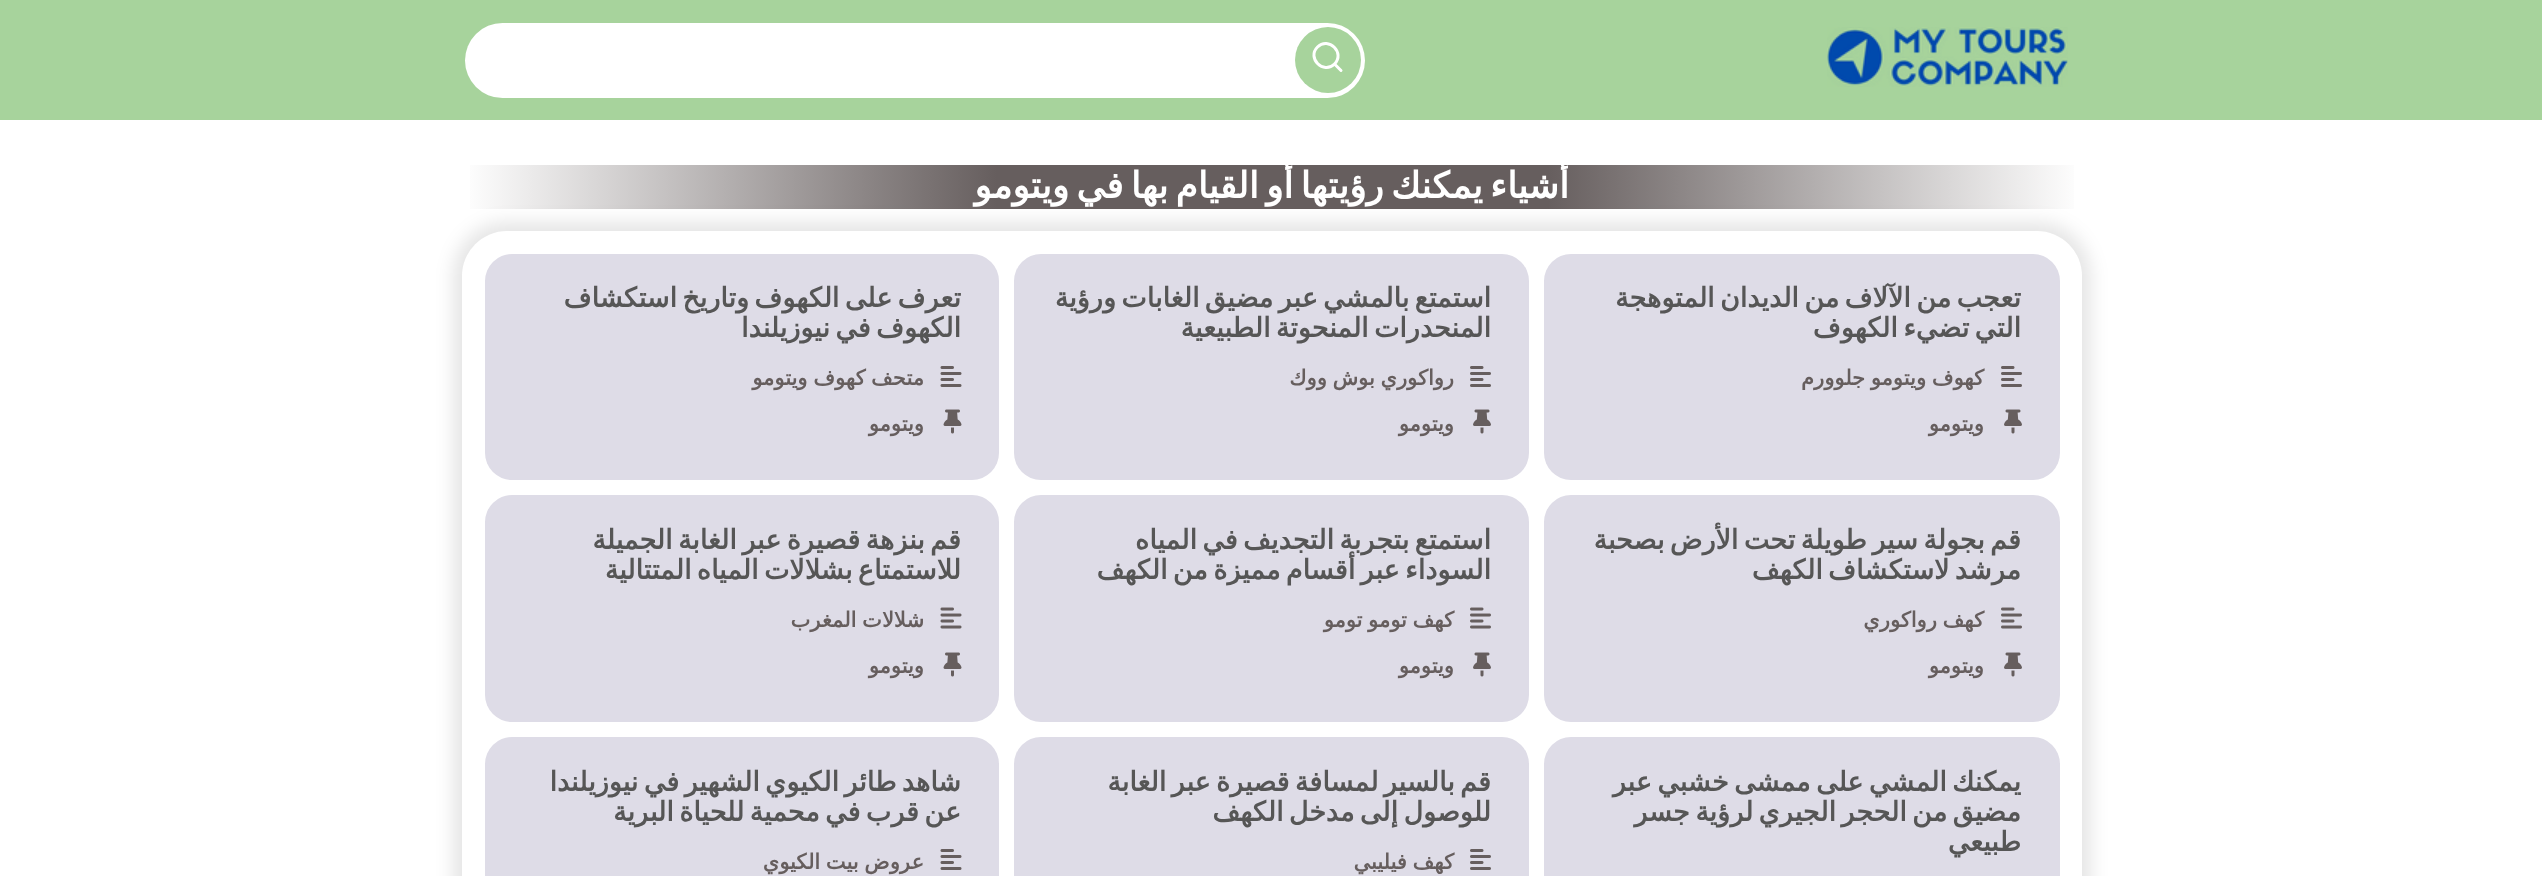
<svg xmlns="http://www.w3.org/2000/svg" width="2542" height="876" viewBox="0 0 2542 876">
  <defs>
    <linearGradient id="g1" gradientUnits="userSpaceOnUse" x1="462" y1="187" x2="2082" y2="187"><stop offset="0" stop-color="#ffffff"/><stop offset="0.33" stop-color="#665e5e"/><stop offset="0.67" stop-color="#665e5e"/><stop offset="1" stop-color="#ffffff"/></linearGradient>
    <filter id="blur1" x="-50%" y="-200%" width="200%" height="500%"><feGaussianBlur stdDeviation="9"/></filter>
  </defs>
  <rect width="100%" height="100%" fill="#ffffff"/>
  <rect x="0" y="0" width="2542" height="120" fill="#a7d39c"/>
  <image x="1827" y="27" width="241" height="60" href="img1.png"/>
  <rect x="465" y="23" width="900" height="75" rx="37.5" fill="#ffffff"/>
  <circle cx="1328" cy="60" r="33" fill="#a7d39c"/>
  <path d="M1341 70.5L1334.5 64M1334.5 64C1345.5 53 1328.5 36 1317.5 47C1306.5 58 1323.5 75 1334.5 64" fill="none" stroke="#ffffff" stroke-width="3" stroke-linecap="round" stroke-linejoin="round"/>
  <rect x="470" y="165" width="1604" height="44" fill="url(#g1)"/>
  <text x="1569" y="198" word-spacing="-4.25" font-family="DejaVu Sans" font-size="36" font-weight="bold" direction="rtl" fill="#ffffff">أشياء يمكنك رؤيتها أو القيام بها في ويتومو</text>
  <rect x="453" y="222" width="1638" height="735" rx="54" fill="#000000" fill-opacity="0.1" filter="url(#blur1)"/>
  <rect x="462" y="231" width="1620" height="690" rx="45" fill="#ffffff"/>
  <rect x="1544" y="254" width="516" height="226" rx="27" fill="#dedce7"/>
  <text x="2021" y="307" word-spacing="-3.25" font-family="DejaVu Sans" font-size="27" font-weight="bold" direction="rtl" fill="#565656">تعجب من الآلاف من الديدان المتوهجة</text>
  <text x="2021" y="337" word-spacing="-3.25" font-family="DejaVu Sans" font-size="27" font-weight="bold" direction="rtl" fill="#565656">التي تضيء الكهوف</text>
  <image x="2001" y="366" width="21" height="21" href="img2.png"/>
  <text x="1984" y="385" word-spacing="-1" font-family="DejaVu Sans" font-size="21" font-weight="bold" direction="rtl" fill="#665e5e">كهوف ويتومو جلوورم</text>
  <image x="2004" y="409" width="18" height="25" href="img3.png"/>
  <text x="1984" y="431" font-family="DejaVu Sans" font-size="21" font-weight="bold" direction="rtl" fill="#665e5e">ويتومو</text>
  <rect x="1014" y="254" width="515" height="226" rx="27" fill="#dedce7"/>
  <text x="1491" y="307" word-spacing="-3.25" font-family="DejaVu Sans" font-size="27" font-weight="bold" direction="rtl" fill="#565656">استمتع بالمشي عبر مضيق الغابات ورؤية</text>
  <text x="1491" y="337" word-spacing="-3.25" font-family="DejaVu Sans" font-size="27" font-weight="bold" direction="rtl" fill="#565656">المنحدرات المنحوتة الطبيعية</text>
  <image x="1470" y="366" width="21" height="21" href="img2.png"/>
  <text x="1454" y="385" word-spacing="-1" font-family="DejaVu Sans" font-size="21" font-weight="bold" direction="rtl" fill="#665e5e">رواكوري بوش ووك</text>
  <image x="1473" y="409" width="18" height="25" href="img3.png"/>
  <text x="1454" y="431" font-family="DejaVu Sans" font-size="21" font-weight="bold" direction="rtl" fill="#665e5e">ويتومو</text>
  <rect x="485" y="254" width="514" height="226" rx="27" fill="#dedce7"/>
  <text x="961" y="307" word-spacing="-3.25" font-family="DejaVu Sans" font-size="27" font-weight="bold" direction="rtl" fill="#565656">تعرف على الكهوف وتاريخ استكشاف</text>
  <text x="961" y="337" word-spacing="-3.25" font-family="DejaVu Sans" font-size="27" font-weight="bold" direction="rtl" fill="#565656">الكهوف في نيوزيلندا</text>
  <image x="940" y="366" width="22" height="21" href="img4.png"/>
  <text x="924" y="385" word-spacing="-1" font-family="DejaVu Sans" font-size="21" font-weight="bold" direction="rtl" fill="#665e5e">متحف كهوف ويتومو</text>
  <image x="943" y="409" width="19" height="25" href="img5.png"/>
  <text x="924" y="431" font-family="DejaVu Sans" font-size="21" font-weight="bold" direction="rtl" fill="#665e5e">ويتومو</text>
  <rect x="1544" y="495" width="516" height="227" rx="27" fill="#dedce7"/>
  <text x="2021" y="549" word-spacing="-3.25" font-family="DejaVu Sans" font-size="27" font-weight="bold" direction="rtl" fill="#565656">قم بجولة سير طويلة تحت الأرض بصحبة</text>
  <text x="2021" y="579" word-spacing="-3.25" font-family="DejaVu Sans" font-size="27" font-weight="bold" direction="rtl" fill="#565656">مرشد لاستكشاف الكهف</text>
  <image x="2001" y="607" width="21" height="22" href="img6.png"/>
  <text x="1984" y="627" word-spacing="-1" font-family="DejaVu Sans" font-size="21" font-weight="bold" direction="rtl" fill="#665e5e">كهف رواكوري</text>
  <image x="2004" y="652" width="18" height="25" href="img3.png"/>
  <text x="1984" y="673" font-family="DejaVu Sans" font-size="21" font-weight="bold" direction="rtl" fill="#665e5e">ويتومو</text>
  <rect x="1014" y="495" width="515" height="227" rx="27" fill="#dedce7"/>
  <text x="1491" y="549" word-spacing="-3.25" font-family="DejaVu Sans" font-size="27" font-weight="bold" direction="rtl" fill="#565656">استمتع بتجربة التجديف في المياه</text>
  <text x="1491" y="579" word-spacing="-3.25" font-family="DejaVu Sans" font-size="27" font-weight="bold" direction="rtl" fill="#565656">السوداء عبر أقسام مميزة من الكهف</text>
  <image x="1470" y="607" width="21" height="22" href="img6.png"/>
  <text x="1454" y="627" word-spacing="-1" font-family="DejaVu Sans" font-size="21" font-weight="bold" direction="rtl" fill="#665e5e">كهف تومو تومو</text>
  <image x="1473" y="652" width="18" height="25" href="img3.png"/>
  <text x="1454" y="673" font-family="DejaVu Sans" font-size="21" font-weight="bold" direction="rtl" fill="#665e5e">ويتومو</text>
  <rect x="485" y="495" width="514" height="227" rx="27" fill="#dedce7"/>
  <text x="961" y="549" word-spacing="-3.25" font-family="DejaVu Sans" font-size="27" font-weight="bold" direction="rtl" fill="#565656">قم بنزهة قصيرة عبر الغابة الجميلة</text>
  <text x="961" y="579" word-spacing="-3.25" font-family="DejaVu Sans" font-size="27" font-weight="bold" direction="rtl" fill="#565656">للاستمتاع بشلالات المياه المتتالية</text>
  <image x="940" y="607" width="22" height="22" href="img7.png"/>
  <text x="924" y="627" word-spacing="-1" font-family="DejaVu Sans" font-size="21" font-weight="bold" direction="rtl" fill="#665e5e">شلالات المغرب</text>
  <image x="943" y="652" width="19" height="25" href="img5.png"/>
  <text x="924" y="673" font-family="DejaVu Sans" font-size="21" font-weight="bold" direction="rtl" fill="#665e5e">ويتومو</text>
  <rect x="1544" y="737" width="516" height="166" rx="27" fill="#dedce7"/>
  <text x="2021" y="791" word-spacing="-3.25" font-family="DejaVu Sans" font-size="27" font-weight="bold" direction="rtl" fill="#565656">يمكنك المشي على ممشى خشبي عبر</text>
  <text x="2021" y="821" word-spacing="-3.25" font-family="DejaVu Sans" font-size="27" font-weight="bold" direction="rtl" fill="#565656">مضيق من الحجر الجيري لرؤية جسر</text>
  <text x="2021" y="851" font-family="DejaVu Sans" font-size="27" font-weight="bold" direction="rtl" fill="#565656">طبيعي</text>
  <rect x="1014" y="737" width="515" height="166" rx="27" fill="#dedce7"/>
  <text x="1491" y="791" word-spacing="-3.25" font-family="DejaVu Sans" font-size="27" font-weight="bold" direction="rtl" fill="#565656">قم بالسير لمسافة قصيرة عبر الغابة</text>
  <text x="1491" y="821" word-spacing="-3.25" font-family="DejaVu Sans" font-size="27" font-weight="bold" direction="rtl" fill="#565656">للوصول إلى مدخل الكهف</text>
  <image x="1470" y="849" width="21" height="21" href="img2.png"/>
  <text x="1454" y="869" word-spacing="-1" font-family="DejaVu Sans" font-size="21" font-weight="bold" direction="rtl" fill="#665e5e">كهف فيليبي</text>
  <rect x="485" y="737" width="514" height="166" rx="27" fill="#dedce7"/>
  <text x="961" y="791" word-spacing="-3.25" font-family="DejaVu Sans" font-size="27" font-weight="bold" direction="rtl" fill="#565656">شاهد طائر الكيوي الشهير في نيوزيلندا</text>
  <text x="961" y="821" word-spacing="-3.25" font-family="DejaVu Sans" font-size="27" font-weight="bold" direction="rtl" fill="#565656">عن قرب في محمية للحياة البرية</text>
  <image x="940" y="849" width="22" height="21" href="img4.png"/>
  <text x="924" y="869" word-spacing="-1" font-family="DejaVu Sans" font-size="21" font-weight="bold" direction="rtl" fill="#665e5e">عروض بيت الكيوي</text>
</svg>
